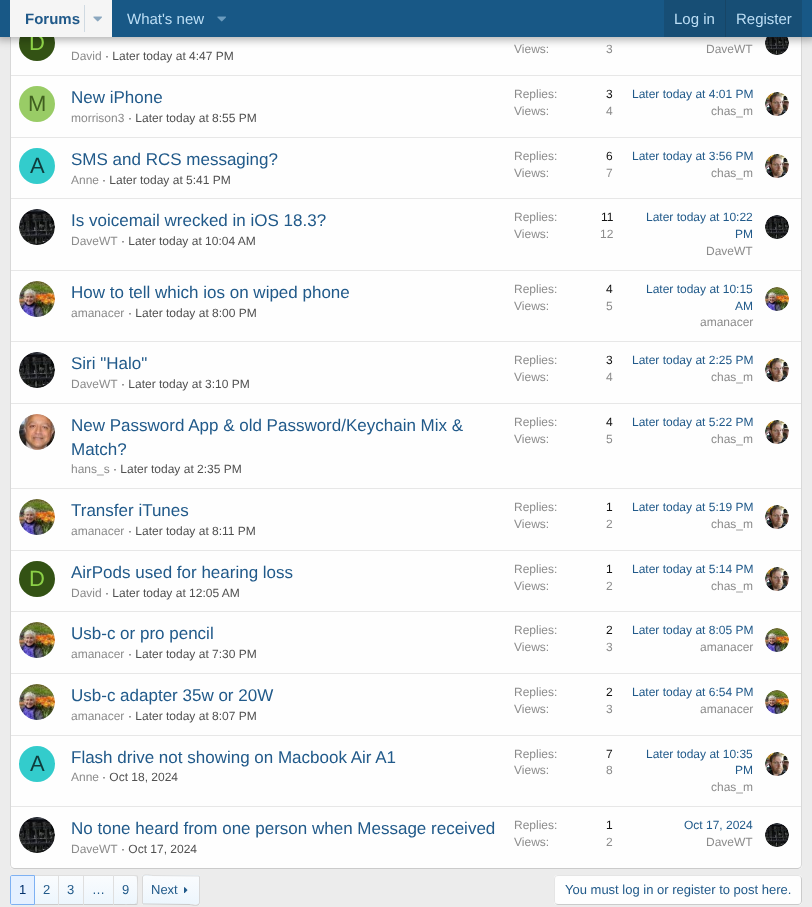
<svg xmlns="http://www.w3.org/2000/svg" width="812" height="907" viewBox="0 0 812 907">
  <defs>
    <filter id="blur1" x="-50%" y="-200%" width="200%" height="500%"><feGaussianBlur stdDeviation="4"/></filter>
    <linearGradient id="g1" gradientUnits="userSpaceOnUse" x1="47" y1="904" x2="47" y2="876"><stop offset="0" stop-color="#edf6fd"/><stop offset="1" stop-color="#fafcfe"/></linearGradient>
    <linearGradient id="g2" gradientUnits="userSpaceOnUse" x1="71" y1="904" x2="71" y2="876"><stop offset="0" stop-color="#edf6fd"/><stop offset="1" stop-color="#fafcfe"/></linearGradient>
    <linearGradient id="g3" gradientUnits="userSpaceOnUse" x1="99" y1="904" x2="99" y2="876"><stop offset="0" stop-color="#edf6fd"/><stop offset="1" stop-color="#fafcfe"/></linearGradient>
    <linearGradient id="g4" gradientUnits="userSpaceOnUse" x1="126" y1="904" x2="126" y2="876"><stop offset="0" stop-color="#edf6fd"/><stop offset="1" stop-color="#fafcfe"/></linearGradient>
    <clipPath id="clip1"><rect x="142" y="875" width="58" height="30" rx="2"/></clipPath>
    <linearGradient id="g5" gradientUnits="userSpaceOnUse" x1="171" y1="876" x2="171" y2="848"><stop offset="0" stop-color="#edf6fd"/><stop offset="1" stop-color="#fafcfe"/></linearGradient>
    <linearGradient id="g6" gradientUnits="userSpaceOnUse" x1="171" y1="904" x2="171" y2="876"><stop offset="0" stop-color="#edf6fd"/><stop offset="1" stop-color="#fafcfe"/></linearGradient>
    <linearGradient id="g7" gradientUnits="userSpaceOnUse" x1="171" y1="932" x2="171" y2="904"><stop offset="0" stop-color="#edf6fd"/><stop offset="1" stop-color="#fafcfe"/></linearGradient>
  </defs>
  <rect width="100%" height="100%" fill="#ececec"/>
  <rect x="10" y="-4" width="792" height="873" rx="4" fill="#fefefe"/>
  <path d="M800.5-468.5L801.5-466V865L800.5 867.5" fill="none" stroke="#d8d8d8"/>
  <path d="M800.5 867.5L798 868.5H14L11.5 867.5" fill="none" stroke="#cbcbcb"/>
  <path d="M11.5 867.5L10.5 865V-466L11.5-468.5" fill="none" stroke="#d8d8d8"/>
  <circle cx="37" cy="43" r="18" fill="#335214"/>
  <image x="765" y="37" width="24" height="18" href="img3.png"/>
  <rect x="-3" y="-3" width="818" height="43" fill="#000000" fill-opacity="0.3" filter="url(#blur1)"/>
  <text x="29" y="50" font-family="Liberation Sans" font-size="22" fill="#8cd147">D</text>
  <rect x="0" y="0" width="812" height="37" fill="#185886"/>
  <rect x="10" y="0" width="102" height="37" fill="#f5f5f5"/>
  <text x="25" y="24" font-family="Liberation Sans" font-size="15" font-weight="bold" fill="#215a8a">Forums</text>
  <rect x="84" y="5" width="1" height="27" fill="#d0dae2"/>
  <image x="93" y="16" width="9" height="6" href="img1.png"/>
  <text x="127" y="24" font-family="Liberation Sans" font-size="15" fill="#bcdef5">What's new</text>
  <image x="217" y="16" width="9" height="6" href="img2.png"/>
  <rect x="664" y="0" width="138" height="37" fill="#174e75"/>
  <text x="674" y="24" font-family="Liberation Sans" font-size="15" fill="#bcdef5">Log in</text>
  <rect x="725" y="0" width="1" height="37" fill="#174566"/>
  <text x="736" y="24" font-family="Liberation Sans" font-size="15" fill="#bcdef5">Register</text>
  <text x="514" y="53" font-family="Liberation Sans" font-size="12" fill="#8c8c8c">Views:</text>
  <text x="606" y="53" font-family="Liberation Sans" font-size="12" fill="#8c8c8c">3</text>
  <text x="706" y="53" font-family="Liberation Sans" font-size="12" fill="#8c8c8c">DaveWT</text>
  <text x="71" y="60" font-family="Liberation Sans" font-size="12" fill="#8c8c8c">David</text>
  <text x="105" y="60" font-family="Liberation Sans" font-size="12" fill="#505050">· Later today at 4:47 PM</text>
  <rect x="11" y="75" width="790" height="1" fill="#e7e7e7"/>
  <circle cx="37" cy="104" r="18" fill="#99cc66"/>
  <text x="28" y="111" font-family="Liberation Sans" font-size="22" fill="#406020">M</text>
  <text x="71" y="103" font-family="Liberation Sans" font-size="17" fill="#215a8a">New iPhone</text>
  <text x="71" y="122" font-family="Liberation Sans" font-size="12" fill="#8c8c8c">morrison3</text>
  <text x="128" y="122" font-family="Liberation Sans" font-size="12" fill="#505050">· Later today at 8:55 PM</text>
  <text x="514" y="98" font-family="Liberation Sans" font-size="12" fill="#8c8c8c">Replies:</text>
  <text x="606" y="98" font-family="Liberation Sans" font-size="12" fill="#141414">3</text>
  <text x="514" y="115" font-family="Liberation Sans" font-size="12" fill="#8c8c8c">Views:</text>
  <text x="606" y="115" font-family="Liberation Sans" font-size="12" fill="#8c8c8c">4</text>
  <text x="632" y="98" font-family="Liberation Sans" font-size="12" fill="#215a8a">Later today at 4:01 PM</text>
  <text x="711" y="115" font-family="Liberation Sans" font-size="12" fill="#8c8c8c">chas_m</text>
  <image x="765" y="92" width="24" height="24" href="img4.png"/>
  <rect x="11" y="137" width="790" height="1" fill="#e7e7e7"/>
  <circle cx="37" cy="166" r="18" fill="#33cccc"/>
  <text x="30" y="173" font-family="Liberation Sans" font-size="22" fill="#0f3d3d">A</text>
  <text x="71" y="165" font-family="Liberation Sans" font-size="17" fill="#215a8a">SMS and RCS messaging?</text>
  <text x="71" y="184" font-family="Liberation Sans" font-size="12" fill="#8c8c8c">Anne</text>
  <text x="102" y="184" font-family="Liberation Sans" font-size="12" fill="#505050">· Later today at 5:41 PM</text>
  <text x="514" y="160" font-family="Liberation Sans" font-size="12" fill="#8c8c8c">Replies:</text>
  <text x="606" y="160" font-family="Liberation Sans" font-size="12" fill="#141414">6</text>
  <text x="514" y="177" font-family="Liberation Sans" font-size="12" fill="#8c8c8c">Views:</text>
  <text x="606" y="177" font-family="Liberation Sans" font-size="12" fill="#8c8c8c">7</text>
  <text x="632" y="160" font-family="Liberation Sans" font-size="12" fill="#215a8a">Later today at 3:56 PM</text>
  <text x="711" y="177" font-family="Liberation Sans" font-size="12" fill="#8c8c8c">chas_m</text>
  <image x="765" y="154" width="24" height="24" href="img4.png"/>
  <rect x="11" y="198" width="790" height="1" fill="#e7e7e7"/>
  <image x="19" y="209" width="36" height="36" href="img5.png"/>
  <text x="71" y="226" font-family="Liberation Sans" font-size="17" fill="#215a8a">Is voicemail wrecked in iOS 18.3?</text>
  <text x="71" y="245" font-family="Liberation Sans" font-size="12" fill="#8c8c8c">DaveWT</text>
  <text x="121" y="245" font-family="Liberation Sans" font-size="12" fill="#505050">· Later today at 10:04 AM</text>
  <text x="514" y="221" font-family="Liberation Sans" font-size="12" fill="#8c8c8c">Replies:</text>
  <text x="601" y="221" font-family="Liberation Sans" font-size="12" fill="#141414">11</text>
  <text x="514" y="238" font-family="Liberation Sans" font-size="12" fill="#8c8c8c">Views:</text>
  <text x="600" y="238" font-family="Liberation Sans" font-size="12" fill="#8c8c8c">12</text>
  <text x="646" y="221" font-family="Liberation Sans" font-size="12" fill="#215a8a">Later today at 10:22</text>
  <text x="735" y="238" font-family="Liberation Sans" font-size="12" fill="#215a8a">PM</text>
  <text x="706" y="255" font-family="Liberation Sans" font-size="12" fill="#8c8c8c">DaveWT</text>
  <image x="765" y="215" width="24" height="24" href="img6.png"/>
  <rect x="11" y="270" width="790" height="1" fill="#e7e7e7"/>
  <image x="19" y="281" width="36" height="36" href="img7.png"/>
  <text x="71" y="298" font-family="Liberation Sans" font-size="17" fill="#215a8a">How to tell which ios on wiped phone</text>
  <text x="71" y="317" font-family="Liberation Sans" font-size="12" fill="#8c8c8c">amanacer</text>
  <text x="128" y="317" font-family="Liberation Sans" font-size="12" fill="#505050">· Later today at 8:00 PM</text>
  <text x="514" y="293" font-family="Liberation Sans" font-size="12" fill="#8c8c8c">Replies:</text>
  <text x="606" y="293" font-family="Liberation Sans" font-size="12" fill="#141414">4</text>
  <text x="514" y="310" font-family="Liberation Sans" font-size="12" fill="#8c8c8c">Views:</text>
  <text x="606" y="310" font-family="Liberation Sans" font-size="12" fill="#8c8c8c">5</text>
  <text x="646" y="293" font-family="Liberation Sans" font-size="12" fill="#215a8a">Later today at 10:15</text>
  <text x="735" y="310" font-family="Liberation Sans" font-size="12" fill="#215a8a">AM</text>
  <text x="700" y="326" font-family="Liberation Sans" font-size="12" fill="#8c8c8c">amanacer</text>
  <image x="765" y="287" width="24" height="24" href="img8.png"/>
  <rect x="11" y="341" width="790" height="1" fill="#e7e7e7"/>
  <image x="19" y="352" width="36" height="36" href="img5.png"/>
  <text x="71" y="369" font-family="Liberation Sans" font-size="17" fill="#215a8a">Siri "Halo"</text>
  <text x="71" y="388" font-family="Liberation Sans" font-size="12" fill="#8c8c8c">DaveWT</text>
  <text x="121" y="388" font-family="Liberation Sans" font-size="12" fill="#505050">· Later today at 3:10 PM</text>
  <text x="514" y="364" font-family="Liberation Sans" font-size="12" fill="#8c8c8c">Replies:</text>
  <text x="606" y="364" font-family="Liberation Sans" font-size="12" fill="#141414">3</text>
  <text x="514" y="381" font-family="Liberation Sans" font-size="12" fill="#8c8c8c">Views:</text>
  <text x="606" y="381" font-family="Liberation Sans" font-size="12" fill="#8c8c8c">4</text>
  <text x="632" y="364" font-family="Liberation Sans" font-size="12" fill="#215a8a">Later today at 2:25 PM</text>
  <text x="711" y="381" font-family="Liberation Sans" font-size="12" fill="#8c8c8c">chas_m</text>
  <image x="765" y="358" width="24" height="24" href="img4.png"/>
  <rect x="11" y="403" width="790" height="1" fill="#e7e7e7"/>
  <image x="19" y="414" width="36" height="36" href="img9.png"/>
  <text x="71" y="431" font-family="Liberation Sans" font-size="17" fill="#215a8a">New Password App &amp; old Password/Keychain Mix &amp;</text>
  <text x="71" y="455" font-family="Liberation Sans" font-size="17" fill="#215a8a">Match?</text>
  <text x="71" y="473" font-family="Liberation Sans" font-size="12" fill="#8c8c8c">hans_s</text>
  <text x="113" y="473" font-family="Liberation Sans" font-size="12" fill="#505050">· Later today at 2:35 PM</text>
  <text x="514" y="426" font-family="Liberation Sans" font-size="12" fill="#8c8c8c">Replies:</text>
  <text x="606" y="426" font-family="Liberation Sans" font-size="12" fill="#141414">4</text>
  <text x="514" y="443" font-family="Liberation Sans" font-size="12" fill="#8c8c8c">Views:</text>
  <text x="606" y="443" font-family="Liberation Sans" font-size="12" fill="#8c8c8c">5</text>
  <text x="632" y="426" font-family="Liberation Sans" font-size="12" fill="#215a8a">Later today at 5:22 PM</text>
  <text x="711" y="443" font-family="Liberation Sans" font-size="12" fill="#8c8c8c">chas_m</text>
  <image x="765" y="420" width="24" height="24" href="img4.png"/>
  <rect x="11" y="488" width="790" height="1" fill="#e7e7e7"/>
  <image x="19" y="499" width="36" height="36" href="img10.png"/>
  <text x="71" y="516" font-family="Liberation Sans" font-size="17" fill="#215a8a">Transfer iTunes</text>
  <text x="71" y="535" font-family="Liberation Sans" font-size="12" fill="#8c8c8c">amanacer</text>
  <text x="128" y="535" font-family="Liberation Sans" font-size="12" fill="#505050">· Later today at 8:11 PM</text>
  <text x="514" y="511" font-family="Liberation Sans" font-size="12" fill="#8c8c8c">Replies:</text>
  <text x="606" y="511" font-family="Liberation Sans" font-size="12" fill="#141414">1</text>
  <text x="514" y="528" font-family="Liberation Sans" font-size="12" fill="#8c8c8c">Views:</text>
  <text x="606" y="528" font-family="Liberation Sans" font-size="12" fill="#8c8c8c">2</text>
  <text x="632" y="511" font-family="Liberation Sans" font-size="12" fill="#215a8a">Later today at 5:19 PM</text>
  <text x="711" y="528" font-family="Liberation Sans" font-size="12" fill="#8c8c8c">chas_m</text>
  <image x="765" y="505" width="24" height="24" href="img4.png"/>
  <rect x="11" y="550" width="790" height="1" fill="#e7e7e7"/>
  <circle cx="37" cy="579" r="18" fill="#335214"/>
  <text x="29" y="586" font-family="Liberation Sans" font-size="22" fill="#8cd147">D</text>
  <text x="71" y="578" font-family="Liberation Sans" font-size="17" fill="#215a8a">AirPods used for hearing loss</text>
  <text x="71" y="597" font-family="Liberation Sans" font-size="12" fill="#8c8c8c">David</text>
  <text x="105" y="597" font-family="Liberation Sans" font-size="12" fill="#505050">· Later today at 12:05 AM</text>
  <text x="514" y="573" font-family="Liberation Sans" font-size="12" fill="#8c8c8c">Replies:</text>
  <text x="606" y="573" font-family="Liberation Sans" font-size="12" fill="#141414">1</text>
  <text x="514" y="590" font-family="Liberation Sans" font-size="12" fill="#8c8c8c">Views:</text>
  <text x="606" y="590" font-family="Liberation Sans" font-size="12" fill="#8c8c8c">2</text>
  <text x="632" y="573" font-family="Liberation Sans" font-size="12" fill="#215a8a">Later today at 5:14 PM</text>
  <text x="711" y="590" font-family="Liberation Sans" font-size="12" fill="#8c8c8c">chas_m</text>
  <image x="765" y="567" width="24" height="24" href="img4.png"/>
  <rect x="11" y="611" width="790" height="1" fill="#e7e7e7"/>
  <image x="19" y="622" width="36" height="36" href="img7.png"/>
  <text x="71" y="639" font-family="Liberation Sans" font-size="17" fill="#215a8a">Usb-c or pro pencil</text>
  <text x="71" y="658" font-family="Liberation Sans" font-size="12" fill="#8c8c8c">amanacer</text>
  <text x="128" y="658" font-family="Liberation Sans" font-size="12" fill="#505050">· Later today at 7:30 PM</text>
  <text x="514" y="634" font-family="Liberation Sans" font-size="12" fill="#8c8c8c">Replies:</text>
  <text x="606" y="634" font-family="Liberation Sans" font-size="12" fill="#141414">2</text>
  <text x="514" y="651" font-family="Liberation Sans" font-size="12" fill="#8c8c8c">Views:</text>
  <text x="606" y="651" font-family="Liberation Sans" font-size="12" fill="#8c8c8c">3</text>
  <text x="632" y="634" font-family="Liberation Sans" font-size="12" fill="#215a8a">Later today at 8:05 PM</text>
  <text x="700" y="651" font-family="Liberation Sans" font-size="12" fill="#8c8c8c">amanacer</text>
  <image x="765" y="628" width="24" height="24" href="img8.png"/>
  <rect x="11" y="673" width="790" height="1" fill="#e7e7e7"/>
  <image x="19" y="684" width="36" height="36" href="img7.png"/>
  <text x="71" y="701" font-family="Liberation Sans" font-size="17" fill="#215a8a">Usb-c adapter 35w or 20W</text>
  <text x="71" y="720" font-family="Liberation Sans" font-size="12" fill="#8c8c8c">amanacer</text>
  <text x="128" y="720" font-family="Liberation Sans" font-size="12" fill="#505050">· Later today at 8:07 PM</text>
  <text x="514" y="696" font-family="Liberation Sans" font-size="12" fill="#8c8c8c">Replies:</text>
  <text x="606" y="696" font-family="Liberation Sans" font-size="12" fill="#141414">2</text>
  <text x="514" y="713" font-family="Liberation Sans" font-size="12" fill="#8c8c8c">Views:</text>
  <text x="606" y="713" font-family="Liberation Sans" font-size="12" fill="#8c8c8c">3</text>
  <text x="632" y="696" font-family="Liberation Sans" font-size="12" fill="#215a8a">Later today at 6:54 PM</text>
  <text x="700" y="713" font-family="Liberation Sans" font-size="12" fill="#8c8c8c">amanacer</text>
  <image x="765" y="690" width="24" height="24" href="img8.png"/>
  <rect x="11" y="735" width="790" height="1" fill="#e7e7e7"/>
  <circle cx="37" cy="764" r="18" fill="#33cccc"/>
  <text x="30" y="771" font-family="Liberation Sans" font-size="22" fill="#0f3d3d">A</text>
  <text x="71" y="763" font-family="Liberation Sans" font-size="17" fill="#215a8a">Flash drive not showing on Macbook Air A1</text>
  <text x="71" y="781" font-family="Liberation Sans" font-size="12" fill="#8c8c8c">Anne</text>
  <text x="102" y="781" font-family="Liberation Sans" font-size="12" fill="#505050">· Oct 18, 2024</text>
  <text x="514" y="758" font-family="Liberation Sans" font-size="12" fill="#8c8c8c">Replies:</text>
  <text x="606" y="758" font-family="Liberation Sans" font-size="12" fill="#141414">7</text>
  <text x="514" y="774" font-family="Liberation Sans" font-size="12" fill="#8c8c8c">Views:</text>
  <text x="606" y="774" font-family="Liberation Sans" font-size="12" fill="#8c8c8c">8</text>
  <text x="646" y="758" font-family="Liberation Sans" font-size="12" fill="#215a8a">Later today at 10:35</text>
  <text x="735" y="774" font-family="Liberation Sans" font-size="12" fill="#215a8a">PM</text>
  <text x="711" y="791" font-family="Liberation Sans" font-size="12" fill="#8c8c8c">chas_m</text>
  <image x="765" y="752" width="24" height="24" href="img4.png"/>
  <rect x="11" y="806" width="790" height="1" fill="#e7e7e7"/>
  <image x="19" y="817" width="36" height="36" href="img5.png"/>
  <text x="71" y="834" font-family="Liberation Sans" font-size="17" fill="#215a8a">No tone heard from one person when Message received</text>
  <text x="71" y="853" font-family="Liberation Sans" font-size="12" fill="#8c8c8c">DaveWT</text>
  <text x="121" y="853" font-family="Liberation Sans" font-size="12" fill="#505050">· Oct 17, 2024</text>
  <text x="514" y="829" font-family="Liberation Sans" font-size="12" fill="#8c8c8c">Replies:</text>
  <text x="606" y="829" font-family="Liberation Sans" font-size="12" fill="#141414">1</text>
  <text x="514" y="846" font-family="Liberation Sans" font-size="12" fill="#8c8c8c">Views:</text>
  <text x="606" y="846" font-family="Liberation Sans" font-size="12" fill="#8c8c8c">2</text>
  <text x="684" y="829" font-family="Liberation Sans" font-size="12" fill="#215a8a">Oct 17, 2024</text>
  <text x="706" y="846" font-family="Liberation Sans" font-size="12" fill="#8c8c8c">DaveWT</text>
  <image x="765" y="823" width="24" height="24" href="img6.png"/>
  <path d="M12 875.5H34.5V904.5H12C11 904.5 10.5 904 10.5 903V877C10.5 876 11 875.5 12 875.5Z" fill="#e5f0ff" stroke="#7eb1f3"/>
  <text x="19" y="894" font-family="Liberation Sans" font-size="13" fill="#03316d">1</text>
  <rect x="35" y="876" width="23" height="28" fill="url(#g1)"/>
  <rect x="35" y="875" width="78" height="1" fill="#dfdfdf"/>
  <rect x="35" y="904" width="78" height="1" fill="#cbcbcb"/>
  <text x="43" y="894" font-family="Liberation Sans" font-size="13" fill="#215a8a">2</text>
  <rect x="59" y="876" width="24" height="28" fill="url(#g2)"/>
  <rect x="58" y="875" width="1" height="30" fill="#dfdfdf"/>
  <text x="67" y="894" font-family="Liberation Sans" font-size="13" fill="#215a8a">3</text>
  <rect x="84" y="876" width="29" height="28" fill="url(#g3)"/>
  <rect x="83" y="875" width="1" height="30" fill="#dfdfdf"/>
  <text x="92" y="894" font-family="Liberation Sans" font-size="13" fill="#215a8a">…</text>
  <rect x="114" y="876" width="24" height="28" fill="url(#g4)"/>
  <path d="M113 875L114 876C116.5 876 136 875.5 136.5 876.5L137.5 875.5L136 875Z" fill="#dfdfdf"/>
  <path d="M138 903V877L137.5 875.5L136.5 876.5C137.5 877 137.5 903 136.5 903.5L137.5 904.5Z" fill="#d8d8d8"/>
  <path d="M136 905L137.5 904.5L136.5 903.5C136 904.5 116.5 904 114 904L113 905Z" fill="#cbcbcb"/>
  <path d="M114 876L113 875V905L114 904Z" fill="#dfdfdf"/>
  <text x="122" y="894" font-family="Liberation Sans" font-size="13" fill="#215a8a">9</text>
  <g clip-path="url(#clip1)">
    <rect x="142" y="875" width="58" height="1" fill="url(#g5)"/>
    <rect x="142" y="876" width="58" height="28" fill="url(#g6)"/>
    <rect x="142" y="904" width="58" height="1" fill="url(#g7)"/>
  </g>
  <path d="M143 876C145.5 873.5 149.5 875.5 153 875.5L199 876" fill="none" stroke="#dfdfdf"/>
  <path d="M199 876L199.5 877V903L199 904" fill="none" stroke="#d8d8d8"/>
  <path d="M199 904C196.5 906.5 192.5 904.5 189 904.5L143 904" fill="none" stroke="#cbcbcb"/>
  <path d="M143 904L142.5 903V877L143 876" fill="none" stroke="#d8d8d8"/>
  <text x="151" y="894" font-family="Liberation Sans" font-size="13" fill="#215a8a">Next</text>
  <image x="184" y="887" width="4" height="7" href="img11.png"/>
  <rect x="554" y="875" width="248" height="30" rx="4" fill="#fefefe"/>
  <path d="M800.5 876.5C801 877 801.5 878 801.5 879V901C801.5 902 801 903 800.5 903.5C800 904 799 904.5 798 904.5H558C557 904.5 556 904 555.5 903.5" fill="none" stroke="#cbcbcb"/>
  <path d="M555.5 903.5C555 903 554.5 902 554.5 901V879C554.5 878 555 877 555.5 876.5C556 876 557 875.5 558 875.5H798C799 875.5 800 876 800.5 876.5" fill="none" stroke="#e5e5e5"/>
  <text x="565" y="894" font-family="Liberation Sans" font-size="13" fill="#215a8a">You must log in or register to post here.</text>
</svg>
